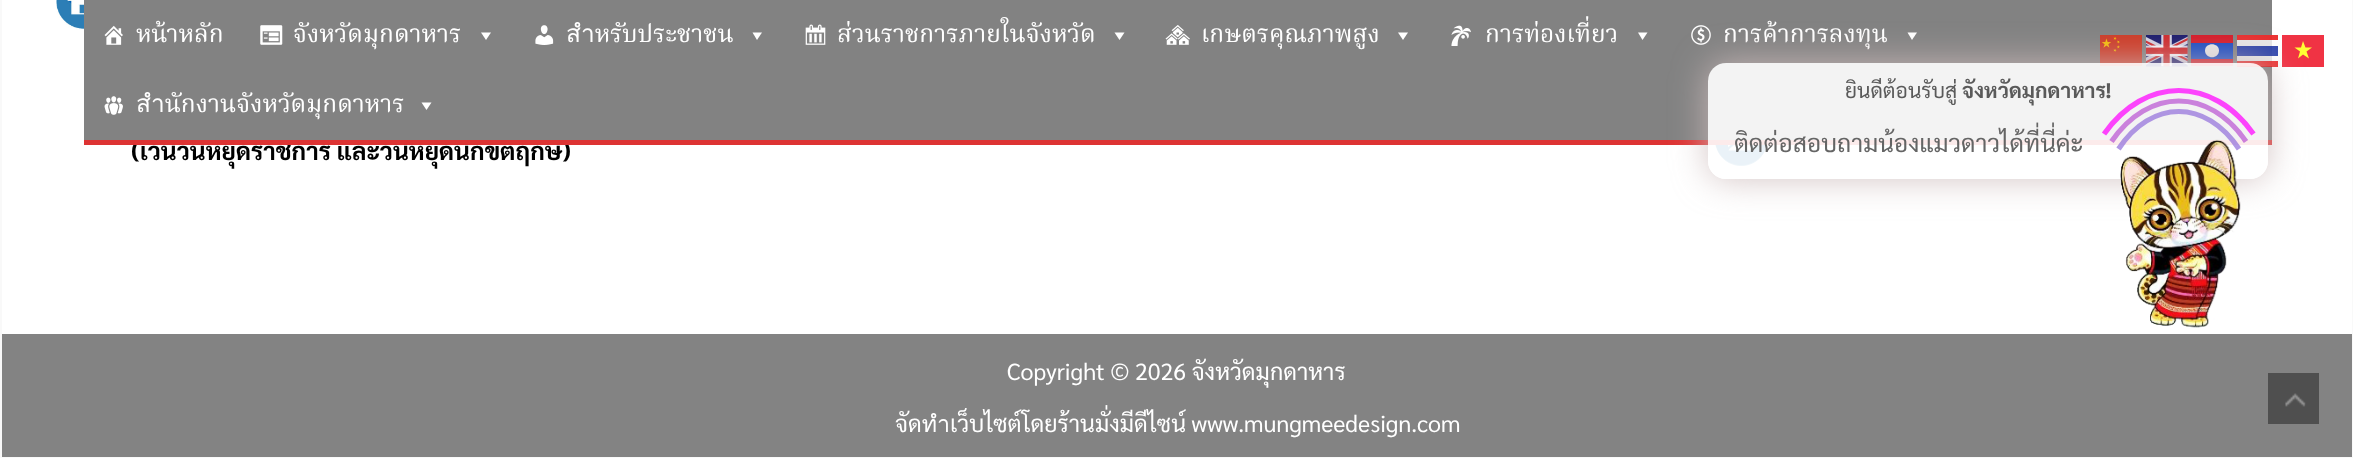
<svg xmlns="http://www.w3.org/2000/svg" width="2353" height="458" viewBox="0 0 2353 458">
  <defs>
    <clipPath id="clip1"><rect x="2237" y="35" width="42" height="32"/></clipPath>
    <clipPath id="clip2"><path d="M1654 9H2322V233H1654ZM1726 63H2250C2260 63 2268 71 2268 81V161C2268 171 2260 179 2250 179H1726C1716 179 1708 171 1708 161V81C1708 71 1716 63 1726 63Z" clip-rule="evenodd"/></clipPath>
    <filter id="blur1" x="-50%" y="-200%" width="200%" height="500%"><feGaussianBlur stdDeviation="17.5"/></filter>
  </defs>
  <rect width="100%" height="100%" fill="#ffffff"/>
  <rect x="1" y="-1" width="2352" height="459" fill="none" stroke="#f9f9f9" stroke-width="2"/>
  <text x="131" y="160" font-family="Sarabun" font-size="24.5" font-weight="bold" fill="#000000">(เว้นวันหยุดราชการ และวันหยุดนักขัตฤกษ์)</text>
  <rect x="84" y="140" width="2188" height="5" fill="#dd3333"/>
  <rect x="84" y="0" width="2188" height="140" fill="#828282"/>
  <rect x="2237" y="35" width="35" height="31" fill="#e6e6e6"/>
  <rect x="2237" y="46" width="35" height="10" fill="#2e44a9"/>
  <image x="104" y="25" width="19" height="20" href="img1.png"/>
  <text x="136" y="42" font-family="Noto Serif Thai" font-size="24.5" fill="#ffffff">หน้าหลัก</text>
  <image x="260" y="25" width="23" height="20" href="img2.png"/>
  <text x="293" y="42" font-family="Noto Serif Thai" font-size="24.5" fill="#ffffff">จังหวัดมุกดาหาร</text>
  <path d="M491 32.5L486 40L481 32.5Z" fill="#ffffff"/>
  <image x="535" y="25" width="19" height="20" href="img3.png"/>
  <text x="566" y="42" font-family="Noto Serif Thai" font-size="24.5" fill="#ffffff">สำหรับประชาชน</text>
  <path d="M762 32.5L757 40L752.5 32.5Z" fill="#ffffff"/>
  <image x="805" y="24" width="21" height="21" href="img4.png"/>
  <text x="837" y="42" font-family="Noto Serif Thai" font-size="24.5" fill="#ffffff">ส่วนราชการภายในจังหวัด</text>
  <path d="M1124.5 32.5L1119.5 40L1114.5 32.5Z" fill="#ffffff"/>
  <image x="1165" y="25" width="25" height="20" href="img5.png"/>
  <text x="1201" y="42" font-family="Noto Serif Thai" font-size="24.5" fill="#ffffff">เกษตรคุณภาพสูง</text>
  <path d="M1408 32.5L1403 40L1398 32.5Z" fill="#ffffff"/>
  <image x="1451" y="25" width="20" height="21" href="img6.png"/>
  <text x="1485" y="42" font-family="Noto Serif Thai" font-size="24.5" fill="#ffffff">การท่องเที่ยว</text>
  <path d="M1647.5 32.5L1642.5 40L1638 32.5Z" fill="#ffffff"/>
  <image x="1691" y="25" width="20" height="20" href="img7.png"/>
  <text x="1723" y="42" font-family="Noto Serif Thai" font-size="24.5" fill="#ffffff">การค้าการลงทุน</text>
  <path d="M1917 32.5L1912 40L1907.5 32.5Z" fill="#ffffff"/>
  <image x="104" y="96" width="19" height="19" href="img8.png"/>
  <text x="136" y="112" font-family="Noto Serif Thai" font-size="24.5" fill="#ffffff">สำนักงานจังหวัดมุกดาหาร</text>
  <path d="M431.5 102.5L426.5 110L421.5 102.5Z" fill="#ffffff"/>
  <rect x="2272" y="46" width="6" height="10" fill="#3349ae"/>
  <image x="56" y="0" width="28" height="30" href="img9.png"/>
  <image x="1715" y="145" width="52" height="21" href="img10.png"/>
  <rect x="2" y="334" width="2350" height="123" fill="#838383"/>
  <text x="1007" y="380" font-family="Sarabun" font-size="23.25" fill="#ffffff">Copyright © 2026 จังหวัดมุกดาหาร</text>
  <text x="895" y="432" font-family="Sarabun" font-size="23.25" fill="#ffffff">จัดทำเว็บไซต์โดยร้านมั่งมีดีไซน์ www.mungmeedesign.com</text>
  <image x="2100" y="35" width="42" height="31" href="img11.png"/>
  <image x="2146" y="35" width="42" height="32" href="img12.png"/>
  <rect x="2191" y="35" width="42" height="31" fill="#d41a28"/>
  <g clip-path="url(#clip1)">
    <path d="M2236 35H2278V40H2236ZM2236 61H2278V67H2236Z" fill="#e70000" fill-opacity="0.8" fill-rule="evenodd"/>
  </g>
  <rect x="2282" y="35" width="42" height="32" fill="#f03344"/>
  <rect x="2191" y="43" width="42" height="16" fill="#1a4bc2"/>
  <path d="M2309 58.5L2303 54.5L2298 58.5L2300 51.5L2294.5 47.5H2301L2303 41L2305.5 47.5H2312L2306.5 51.5Z" fill="#ffff33" fill-rule="evenodd"/>
  <path d="M2219 50.5C2219 59.5 2205 59.5 2205 50.5C2205 42 2219 42 2219 50.5Z" fill="#e6e6e6" fill-rule="evenodd"/>
  <g clip-path="url(#clip2)">
    <rect x="1708" y="63" width="560" height="116" rx="18" fill="#cebdbd" fill-opacity="0.9" filter="url(#blur1)"/>
  </g>
  <rect x="1708" y="63" width="560" height="116" rx="18" fill="#ffffff" fill-opacity="0.9"/>
  <text x="1845" y="98" font-family="Sarabun" font-size="21" fill="#5a5a5a">ยินดีต้อนรับสู่</text>
  <text x="1962" y="98" font-family="Sarabun" font-size="21" font-weight="bold" fill="#5a5a5a">จังหวัดมุกดาหาร!</text>
  <text x="1734" y="152" font-family="Sarabun" font-size="24.5" fill="#656565">ติดต่อสอบถามน้องแมวดาวได้ที่นี่ค่ะ</text>
  <image x="2120" y="139" width="121" height="189" href="img13.png"/>
  <path d="M2118.5 149C2151.5 99 2206 99 2239 149" fill="none" stroke="#9370db" stroke-opacity="0.72" stroke-width="5.2"/>
  <path d="M2111.5 141.5C2148.5 87.5 2209 87.5 2246 141.5" fill="none" stroke="#ba55d3" stroke-opacity="0.72" stroke-width="5.2"/>
  <path d="M2104 134C2145 76 2212.5 76 2253.5 134" fill="none" stroke="#fc43fc" stroke-width="5.2"/>
  <rect x="2268" y="373" width="51" height="51" fill="#4f4f4f"/>
  <image x="2285" y="393" width="21" height="14" href="img14.png"/>
</svg>
